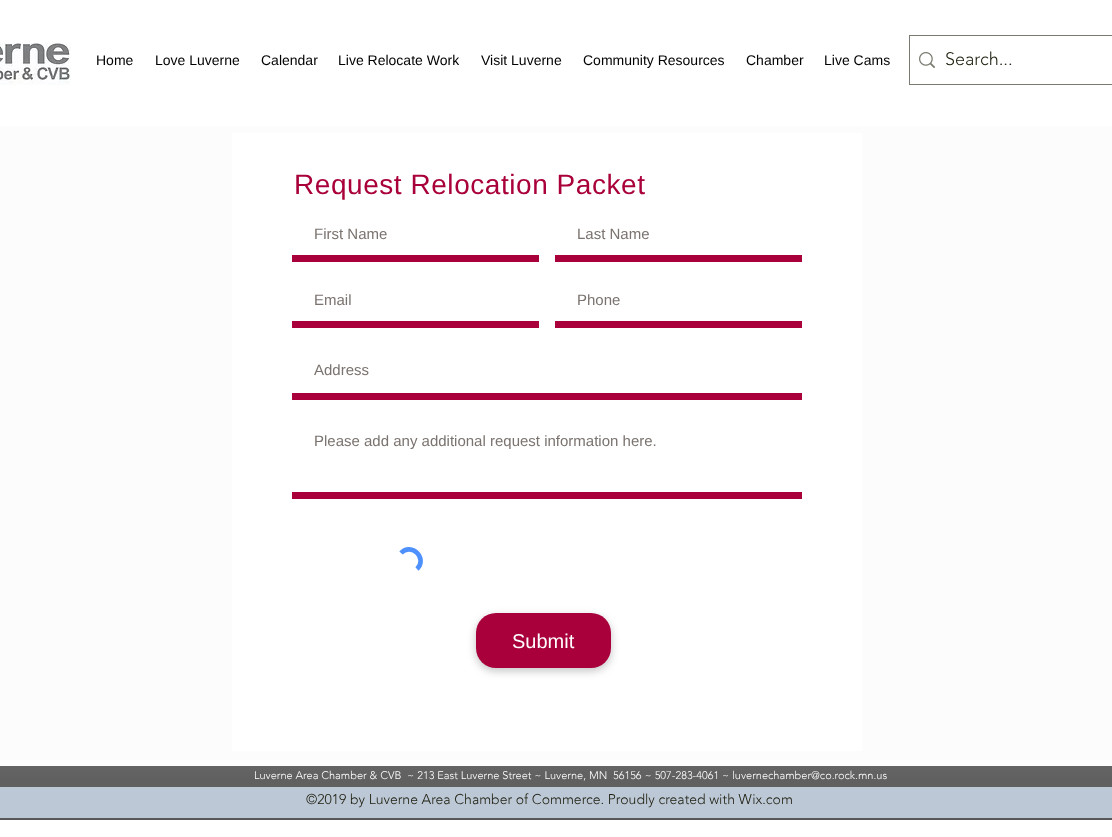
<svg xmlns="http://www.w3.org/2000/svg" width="1112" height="837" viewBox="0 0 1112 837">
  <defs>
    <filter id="blur1" x="-50%" y="-200%" width="200%" height="500%"><feGaussianBlur stdDeviation="4.5"/></filter>
  </defs>
  <rect width="100%" height="100%" fill="#ffffff"/>
  <image x="0" y="43" width="71" height="42" href="img1.png"/>
  <text x="96" y="65" font-family="Liberation Sans" font-size="14" fill="#000000">Home</text>
  <text x="155" y="65" font-family="Liberation Sans" font-size="14" fill="#000000">Love Luverne</text>
  <text x="261" y="65" font-family="Liberation Sans" font-size="14" fill="#000000">Calendar</text>
  <text x="338" y="65" font-family="Liberation Sans" font-size="14" fill="#000000">Live Relocate Work</text>
  <text x="481" y="65" font-family="Liberation Sans" font-size="14" fill="#000000">Visit Luverne</text>
  <text x="583" y="65" font-family="Liberation Sans" font-size="14" fill="#000000">Community Resources</text>
  <text x="746" y="65" font-family="Liberation Sans" font-size="14" fill="#000000">Chamber</text>
  <text x="824" y="65" font-family="Liberation Sans" font-size="14" fill="#000000">Live Cams</text>
  <rect x="909.5" y="35.5" width="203" height="49" fill="none" stroke="#7a7a71"/>
  <image x="919" y="52" width="16" height="16" href="img2.png"/>
  <text x="945" y="65" font-family="'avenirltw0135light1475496'" font-size="18" font-weight="300" fill="#222213">Search...</text>
  <rect x="0" y="126" width="1112" height="640" fill="#fcfcfc"/>
  <rect x="232" y="133" width="630" height="618" fill="#ffffff"/>
  <text x="294" y="194" font-family="Liberation Sans" font-size="28" letter-spacing="0.55" fill="#a9003b">Request Relocation Packet</text>
  <rect x="292" y="255" width="247" height="7" fill="#a9003b"/>
  <text x="314" y="239" font-family="Liberation Sans" font-size="15" fill="#7a736f">First Name</text>
  <rect x="555" y="255" width="247" height="7" fill="#a9003b"/>
  <text x="577" y="239" font-family="Liberation Sans" font-size="15" fill="#7a736f">Last Name</text>
  <rect x="292" y="321" width="247" height="7" fill="#a9003b"/>
  <text x="314" y="305" font-family="Liberation Sans" font-size="15" fill="#7a736f">Email</text>
  <rect x="555" y="321" width="247" height="7" fill="#a9003b"/>
  <text x="577" y="305" font-family="Liberation Sans" font-size="15" fill="#7a736f">Phone</text>
  <rect x="292" y="393" width="510" height="7" fill="#a9003b"/>
  <text x="314" y="375" font-family="Liberation Sans" font-size="15" fill="#7a736f">Address</text>
  <rect x="292" y="492" width="510" height="7" fill="#a9003b"/>
  <text x="314" y="446" font-family="Liberation Sans" font-size="15" fill="#7a736f">Please add any additional request information here.</text>
  <path d="M401 553C411.5 542 428 558.5 417 569" fill="none" stroke="#4d90fe" stroke-width="4.6"/>
  <rect x="476" y="616" width="135" height="55" rx="20" fill="#000000" fill-opacity="0.23" filter="url(#blur1)"/>
  <rect x="476" y="613" width="135" height="55" rx="20" fill="#a9003b"/>
  <text x="512" y="648" font-family="Liberation Sans" font-size="20" fill="#ffffff">Submit</text>
  <rect x="0" y="766" width="1112" height="54" fill="#2f2e2e"/>
  <image x="0" y="766" width="1112" height="54" href="img3.png"/>
  <text x="254" y="779" font-family="'avenirltw0135light1475496'" font-size="11" font-weight="300" fill="#ffffff" xml:space="preserve">Luverne Area Chamber &amp; CVB  ~ 213 East Luverne Street ~ Luverne, MN  56156 ~ 507-283-4061 ~ luvernechamber@co.rock.mn.us</text>
  <rect x="0" y="787" width="1112" height="31" fill="#bcc8d6"/>
  <text x="306" y="804" font-family="'avenirltw0135light1475496'" font-size="14" font-weight="300" fill="#222213">©2019 by Luverne Area Chamber of Commerce. Proudly created with Wix.com</text>
</svg>
